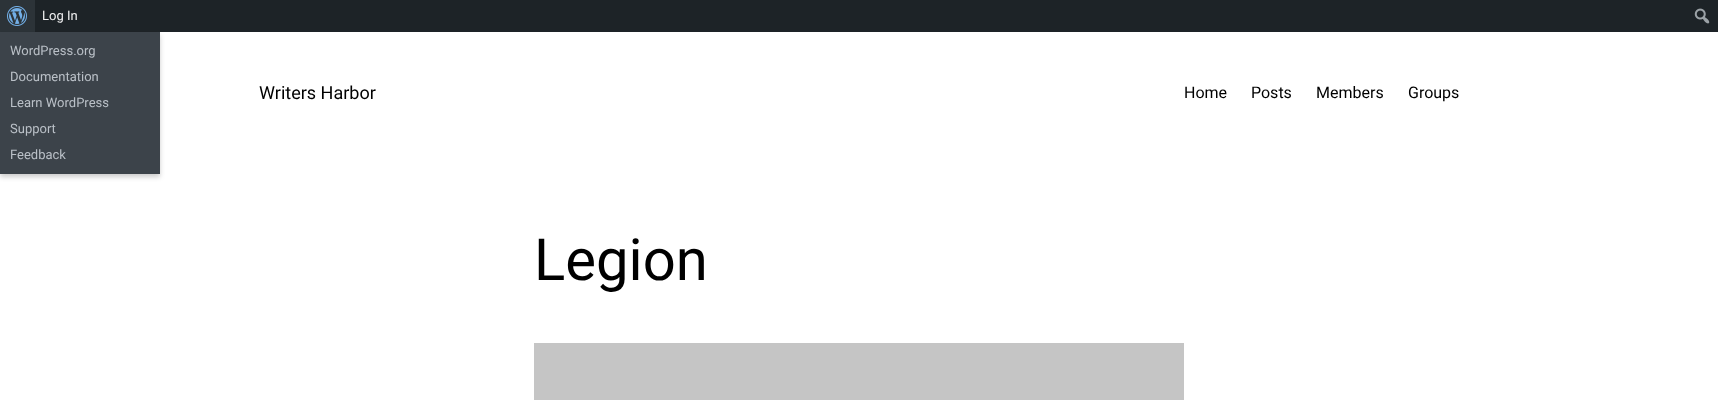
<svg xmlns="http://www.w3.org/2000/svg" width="1718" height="400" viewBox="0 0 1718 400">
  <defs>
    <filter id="blur1" x="-50%" y="-200%" width="200%" height="500%"><feGaussianBlur stdDeviation="2.5"/></filter>
  </defs>
  <rect width="100%" height="100%" fill="#ffffff"/>
  <rect x="35" y="0" width="1683" height="32" fill="#1d2327"/>
  <text x="42" y="20" font-family="Roboto" font-size="13" fill="#f0f0f1">Log In</text>
  <rect x="0" y="0" width="35" height="32" fill="#2c3338"/>
  <image x="7" y="6" width="20" height="20" href="img1.png"/>
  <rect x="0" y="35" width="160" height="142" fill="#000000" fill-opacity="0.2" filter="url(#blur1)"/>
  <rect x="0" y="32" width="160" height="142" fill="#3c434a"/>
  <text x="10" y="55" font-family="Roboto" font-size="13" fill="#bac0c7">WordPress.org</text>
  <text x="10" y="81" font-family="Roboto" font-size="13" fill="#bac0c7">Documentation</text>
  <text x="10" y="107" font-family="Roboto" font-size="13" fill="#bac0c7">Learn WordPress</text>
  <text x="10" y="133" font-family="Roboto" font-size="13" fill="#bac0c7">Support</text>
  <text x="10" y="159" font-family="Roboto" font-size="13" fill="#bac0c7">Feedback</text>
  <image x="1694" y="8" width="16" height="16" href="img2.png"/>
  <text x="259" y="99" font-family="Roboto" font-size="18" fill="#000000">Writers Harbor</text>
  <text x="1184" y="98" font-family="Roboto" font-size="16" fill="#000000">Home</text>
  <text x="1251" y="98" font-family="Roboto" font-size="16" fill="#000000">Posts</text>
  <text x="1316" y="98" font-family="Roboto" font-size="16" fill="#000000">Members</text>
  <text x="1408" y="98" font-family="Roboto" font-size="16" fill="#000000">Groups</text>
  <text x="534" y="280" font-family="Roboto" font-size="58" fill="#000000">Legion</text>
  <rect x="534" y="343" width="650" height="57" fill="#c5c5c5"/>
</svg>
